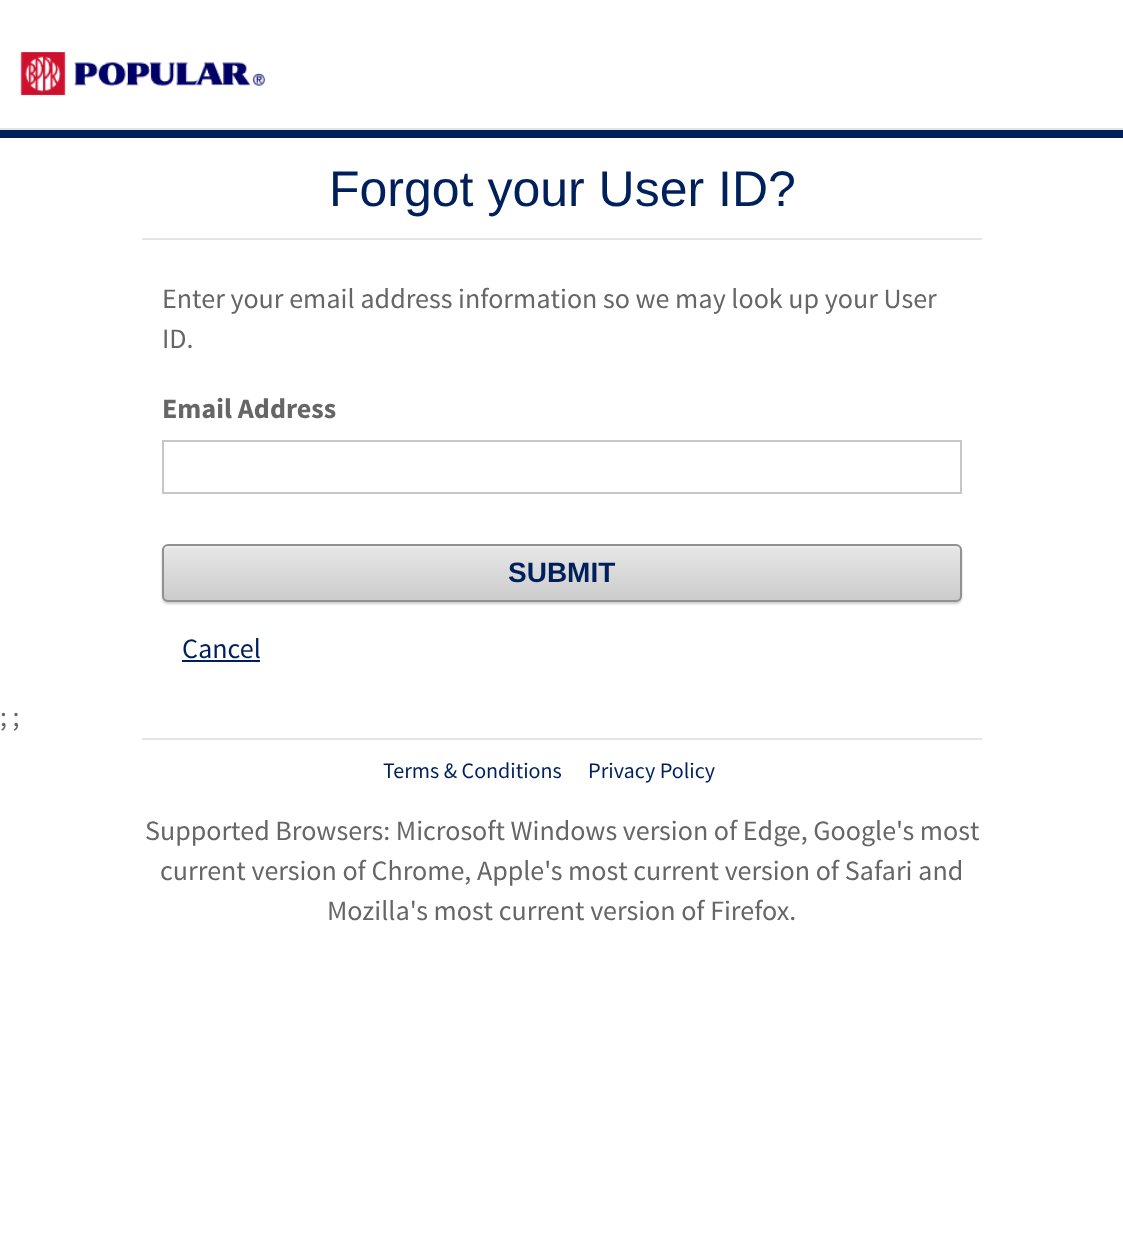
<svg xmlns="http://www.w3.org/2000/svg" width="1123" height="1251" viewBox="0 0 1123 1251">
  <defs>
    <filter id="blur1" x="-50%" y="-200%" width="200%" height="500%"><feGaussianBlur stdDeviation="1"/></filter>
    <clipPath id="clip1"><rect x="162" y="544" width="800" height="58" rx="6"/></clipPath>
    <linearGradient id="g1" gradientUnits="userSpaceOnUse" x1="562" y1="546" x2="562" y2="600"><stop offset="0" stop-color="#e7e7e7"/><stop offset="1" stop-color="#cccccc"/></linearGradient>
  </defs>
  <rect width="100%" height="100%" fill="#ffffff"/>
  <rect x="0" y="130" width="1123" height="8" fill="#00205c"/>
  <image x="20" y="52" width="246" height="44" href="img1.png"/>
  <rect x="0" y="128" width="1123" height="2" fill="#e5e5e5"/>
  <rect x="142" y="238" width="840" height="2" fill="#e5e5e5"/>
  <text x="329" y="206" font-family="Liberation Sans" font-size="50" fill="#00205c">Forgot your User ID?</text>
  <text x="162" y="308" font-family="Source Sans Pro" font-size="28" fill="#666666">Enter your email address information so we may look up your User</text>
  <text x="162" y="348" font-family="Source Sans Pro" font-size="28" fill="#666666">ID.</text>
  <text x="162" y="418" font-family="Source Sans Pro" font-size="28" font-weight="bold" fill="#666666">Email Address</text>
  <rect x="163" y="441" width="798" height="52" fill="none" stroke="#c7c7c7" stroke-width="2"/>
  <rect x="162" y="546" width="800" height="58" rx="6" fill="#000000" fill-opacity="0.2" filter="url(#blur1)"/>
  <g clip-path="url(#clip1)">
    <rect x="162" y="546" width="800" height="54" fill="url(#g1)"/>
  </g>
  <path d="M168 548H956C958 548 960 550 960 552V550C960 548 958 546 956 546H168C166 546 164 548 164 550V552C164 550 166 548 168 548Z" fill="#eeeeee"/>
  <rect x="163" y="545" width="798" height="56" rx="5" fill="none" stroke="#919191" stroke-width="2"/>
  <text x="508" y="582" font-family="Liberation Sans" font-size="28" font-weight="bold" fill="#00205c">SUBMIT</text>
  <text x="182" y="658" font-family="Source Sans Pro" font-size="28" fill="#00205c">Cancel</text>
  <rect x="182" y="660" width="78" height="2" fill="#00205c"/>
  <text x="0" y="726" font-family="Source Sans Pro" font-size="28" fill="#666666">; ;</text>
  <rect x="142" y="738" width="840" height="2" fill="#e5e5e5"/>
  <text x="383" y="778" font-family="Source Sans Pro" font-size="22" fill="#00205c">Terms &amp; Conditions</text>
  <text x="588" y="778" font-family="Source Sans Pro" font-size="22" fill="#00205c">Privacy Policy</text>
  <text x="145" y="840" font-family="Source Sans Pro" font-size="28" fill="#666666">Supported Browsers: Microsoft Windows version of Edge, Google's most</text>
  <text x="160" y="880" font-family="Source Sans Pro" font-size="28" fill="#666666">current version of Chrome, Apple's most current version of Safari and</text>
  <text x="327" y="920" font-family="Source Sans Pro" font-size="28" fill="#666666">Mozilla's most current version of Firefox.</text>
</svg>
